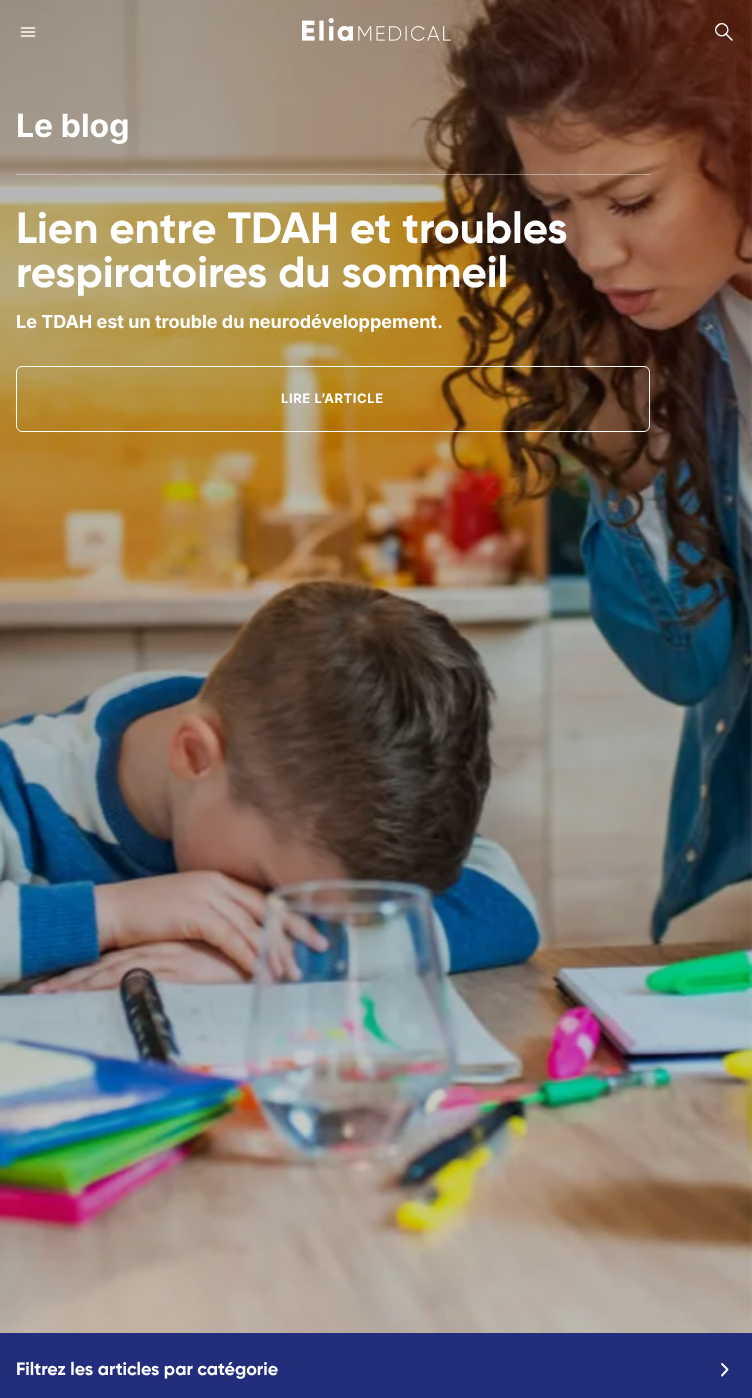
<svg xmlns="http://www.w3.org/2000/svg" width="752" height="1398" viewBox="0 0 752 1398">
  <defs>
    <linearGradient id="g1" gradientUnits="userSpaceOnUse" x1="-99" y1="80" x2="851" y2="1253"><stop offset="0.32" stop-color="#000000" stop-opacity="0.1"/><stop offset="0.74" stop-color="#000000" stop-opacity="0"/></linearGradient>
  </defs>
  <rect width="100%" height="100%" fill="#ffffff"/>
  <image x="0" y="0" width="752" height="1333" href="img3.png"/>
  <rect x="0" y="0" width="752" height="1261" fill="url(#g1)"/>
  <image x="20" y="27" width="16" height="10" href="img1.png"/>
  <image x="302" y="18" width="149" height="23" href="img2.png"/>
  <path d="M726 25.5C731.5 31 723.5 39.5 717.5 34C712 28.5 720.5 20 726 25.5M726 34L732 40" fill="none" stroke="#ffffff" stroke-width="1.5" stroke-linecap="round" stroke-linejoin="round"/>
  <text x="16" y="137" font-family="Inter" font-size="32" font-weight="bold" fill="#ffffff">Le blog</text>
  <rect x="16" y="174" width="634" height="1" fill="#ffffff" fill-opacity="0.4"/>
  <text x="16" y="243" font-family="Gilroy" font-size="43.6" font-weight="bold" fill="#ffffff">Lien entre TDAH et troubles</text>
  <text x="16" y="287" font-family="Gilroy" font-size="43.6" font-weight="bold" fill="#ffffff">respiratoires du sommeil</text>
  <text x="16" y="328" font-family="Inter" font-size="18" font-weight="bold" fill="#ffffff">Le TDAH est un trouble du neurodéveloppement.</text>
  <rect x="16.5" y="366.5" width="633" height="65" rx="5.5" fill="none" stroke="#ffffff"/>
  <text x="281" y="403" font-family="Inter" font-size="13" font-weight="bold" letter-spacing="0.6" fill="#ffffff">LIRE L’ARTICLE</text>
  <rect x="0" y="1333" width="752" height="65" fill="#222d7c"/>
  <text x="16" y="1375" font-family="Gilroy" font-size="18" font-weight="bold" fill="#ffffff">Filtrez les articles par catégorie</text>
  <path d="M722 1375.5L727.5 1369.5L722 1364" fill="none" stroke="#ffffff" stroke-width="1.9" stroke-linecap="round" stroke-linejoin="round"/>
</svg>
